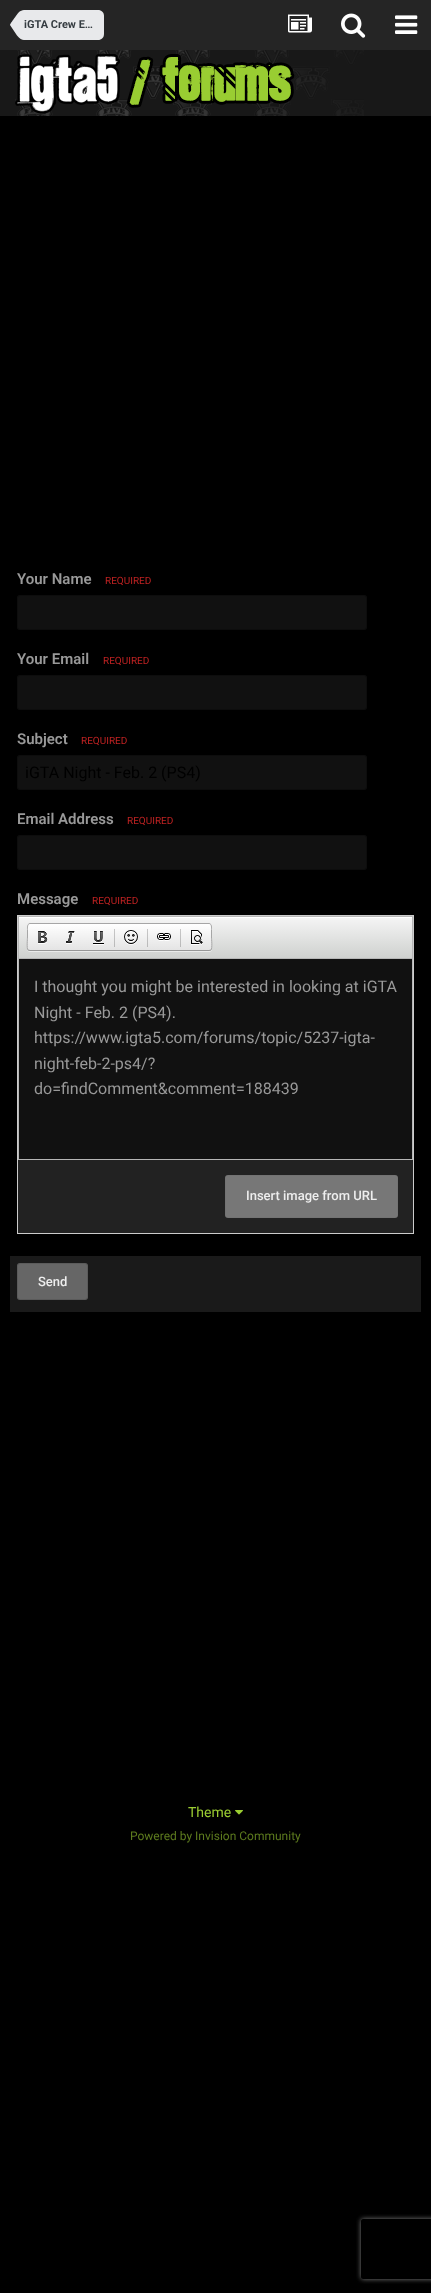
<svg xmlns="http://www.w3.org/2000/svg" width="431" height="2293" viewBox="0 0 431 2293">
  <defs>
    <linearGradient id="g1" gradientUnits="userSpaceOnUse" x1="216" y1="917" x2="216" y2="958"><stop offset="0" stop-color="#f5f5f5"/><stop offset="1" stop-color="#cfd1cf"/></linearGradient>
    <clipPath id="clip1"><rect x="27" y="923" width="185" height="28" rx="3"/></clipPath>
    <linearGradient id="g2" gradientUnits="userSpaceOnUse" x1="120" y1="924" x2="120" y2="950"><stop offset="0" stop-color="#ffffff"/><stop offset="1" stop-color="#e4e4e4"/></linearGradient>
    <linearGradient id="g3" gradientUnits="userSpaceOnUse" x1="120" y1="924" x2="120" y2="950"><stop offset="0" stop-color="#cccccc"/><stop offset="1" stop-color="#b6b6b6"/></linearGradient>
    <clipPath id="clip2"><path d="M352 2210H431V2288H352ZM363 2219H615C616 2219 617 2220 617 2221V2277C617 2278 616 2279 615 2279H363C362 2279 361 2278 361 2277V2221C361 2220 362 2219 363 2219Z" clip-rule="evenodd"/></clipPath>
    <filter id="blur1" x="-50%" y="-200%" width="200%" height="500%"><feGaussianBlur stdDeviation="2.5"/></filter>
  </defs>
  <rect width="100%" height="100%" fill="#000000"/>
  <rect x="0" y="0" width="431" height="50" fill="#252525"/>
  <path d="M24 10H98C101.5 10 104 12.5 104 16V34C104 37.5 101.5 40 98 40H24Z" fill="#e8e9eb"/>
  <path d="M24 25V40C22 40 19.5 38.5 17 35.5L10 25ZM24 25H10C10 24 18.5 12.5 19 12C20.5 11 22 10 24 10Z" fill="#e8e9eb"/>
  <text x="24" y="28" font-family="Roboto" font-size="11" font-weight="bold" fill="#353c41">iGTA Crew E…</text>
  <image x="288" y="14" width="24" height="19" href="img1.png"/>
  <image x="341" y="13" width="25" height="25" href="img2.png"/>
  <image x="395" y="15" width="23" height="19" href="img3.png"/>
  <rect x="0" y="50" width="431" height="66" fill="#181818"/>
  <image x="15" y="50" width="349" height="66" href="img4.png"/>
  <text x="17" y="584" font-family="Roboto" font-size="15" font-weight="600" fill="#999999">Your Name</text>
  <text x="105" y="584" font-family="Roboto" font-size="10" fill="#c02222">REQUIRED</text>
  <rect x="17" y="595" width="350" height="35" rx="3" fill="#111111"/>
  <rect x="17.5" y="595.5" width="349" height="34" rx="2.5" fill="none" stroke="#000000" stroke-opacity="0.2"/>
  <text x="17" y="664" font-family="Roboto" font-size="15" font-weight="600" fill="#999999">Your Email</text>
  <text x="103" y="664" font-family="Roboto" font-size="10" fill="#c02222">REQUIRED</text>
  <rect x="17" y="675" width="350" height="35" rx="3" fill="#111111"/>
  <rect x="17.5" y="675.5" width="349" height="34" rx="2.5" fill="none" stroke="#000000" stroke-opacity="0.2"/>
  <text x="17" y="744" font-family="Roboto" font-size="15" font-weight="600" fill="#999999">Subject</text>
  <text x="81" y="744" font-family="Roboto" font-size="10" fill="#c02222">REQUIRED</text>
  <rect x="17" y="755" width="350" height="35" rx="3" fill="#111111"/>
  <rect x="17.5" y="755.5" width="349" height="34" rx="2.5" fill="none" stroke="#000000" stroke-opacity="0.2"/>
  <text x="25" y="778" font-family="Roboto" font-size="16" fill="#000000">iGTA Night - Feb. 2 (PS4)</text>
  <text x="17" y="824" font-family="Roboto" font-size="15" font-weight="600" fill="#999999">Email Address</text>
  <text x="127" y="824" font-family="Roboto" font-size="10" fill="#c02222">REQUIRED</text>
  <rect x="17" y="835" width="350" height="35" rx="3" fill="#111111"/>
  <rect x="17.5" y="835.5" width="349" height="34" rx="2.5" fill="none" stroke="#000000" stroke-opacity="0.2"/>
  <text x="17" y="904" font-family="Roboto" font-size="15" font-weight="600" fill="#999999">Message</text>
  <text x="92" y="904" font-family="Roboto" font-size="10" fill="#c02222">REQUIRED</text>
  <rect x="17" y="915" width="397" height="319" fill="#cccccc"/>
  <rect x="18.5" y="916.5" width="394" height="243" fill="none" stroke="#b6b6b6"/>
  <rect x="19" y="918" width="393" height="40" fill="url(#g1)"/>
  <rect x="19" y="917" width="393" height="1" fill="#ffffff"/>
  <rect x="19" y="958" width="393" height="1" fill="#b6b6b6"/>
  <path d="M27 948C27 950 28 952 30 952H210C212 951 212 950 212 948C212 950 211 951 209 951H30C28 951 27 950 27 948Z" fill="#eaebea"/>
  <g clip-path="url(#clip1)">
    <rect x="27" y="924" width="185" height="26" fill="url(#g2)"/>
  </g>
  <rect x="180" y="929" width="1" height="18" fill="url(#g3)"/>
  <rect x="147" y="929" width="1" height="18" fill="url(#g3)"/>
  <rect x="114" y="929" width="1" height="18" fill="url(#g3)"/>
  <path d="M211 950L209 950.5H30L28 950" fill="none" stroke="#979797"/>
  <path d="M28 950C26.5 948 27.5 939.5 27.5 937V929.5C27.5 928 27 923.5 30 923.5H209C212 923.5 211.5 928 211.5 929.5V937C211.5 939.5 212.5 948 211 950" fill="none" stroke="#a6a6a6"/>
  <image x="38" y="931" width="10" height="13" href="img5.png"/>
  <image x="66" y="931" width="9" height="13" href="img6.png"/>
  <image x="93" y="931" width="11" height="14" href="img7.png"/>
  <image x="124" y="930" width="14" height="15" href="img8.png"/>
  <image x="157" y="933" width="14" height="8" href="img9.png"/>
  <image x="191" y="930" width="12" height="15" href="img10.png"/>
  <rect x="19" y="959" width="393" height="200" fill="#111111"/>
  <text x="34" y="992" font-family="Roboto" font-size="16" fill="#999999">I thought you might be interested in looking at iGTA</text>
  <text x="34" y="1018" font-family="Roboto" font-size="16" fill="#999999">Night - Feb. 2 (PS4).</text>
  <text x="34" y="1043" font-family="Roboto" font-size="16" fill="#999999">https://www.igta5.com/forums/topic/5237-igta-</text>
  <text x="34" y="1069" font-family="Roboto" font-size="16" fill="#999999">night-feb-2-ps4/?</text>
  <text x="34" y="1094" font-family="Roboto" font-size="16" fill="#999999">do=findComment&amp;comment=188439</text>
  <rect x="18" y="1160" width="395" height="73" fill="#222222"/>
  <rect x="225" y="1175" width="173" height="43" rx="3" fill="#777777"/>
  <rect x="225.5" y="1175.5" width="172" height="42" fill="none" stroke="#000000" stroke-opacity="0.03"/>
  <text x="246" y="1200" font-family="Roboto" font-size="13" font-weight="500" fill="#eeeeee">Insert image from URL</text>
  <g clip-path="url(#clip2)">
    <rect x="361" y="2219" width="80" height="60" rx="2" fill="#808080" filter="url(#blur1)"/>
  </g>
  <rect x="10" y="1256" width="411" height="56" fill="#1a1a1a"/>
  <rect x="17" y="1263" width="71" height="37" rx="3" fill="#666666"/>
  <rect x="17.5" y="1263.5" width="70" height="36" rx="2.5" fill="none" stroke="#000000" stroke-opacity="0.1"/>
  <text x="38" y="1286" font-family="Roboto" font-size="13" font-weight="500" fill="#eeeeee">Send</text>
  <text x="188" y="1817" font-family="Roboto" font-size="14" fill="#9bcd32">Theme</text>
  <image x="235" y="1810" width="8" height="5" href="img11.png"/>
  <text x="130" y="1840" font-family="Roboto" font-size="12" fill="#5d7b1e">Powered by Invision Community</text>
</svg>
